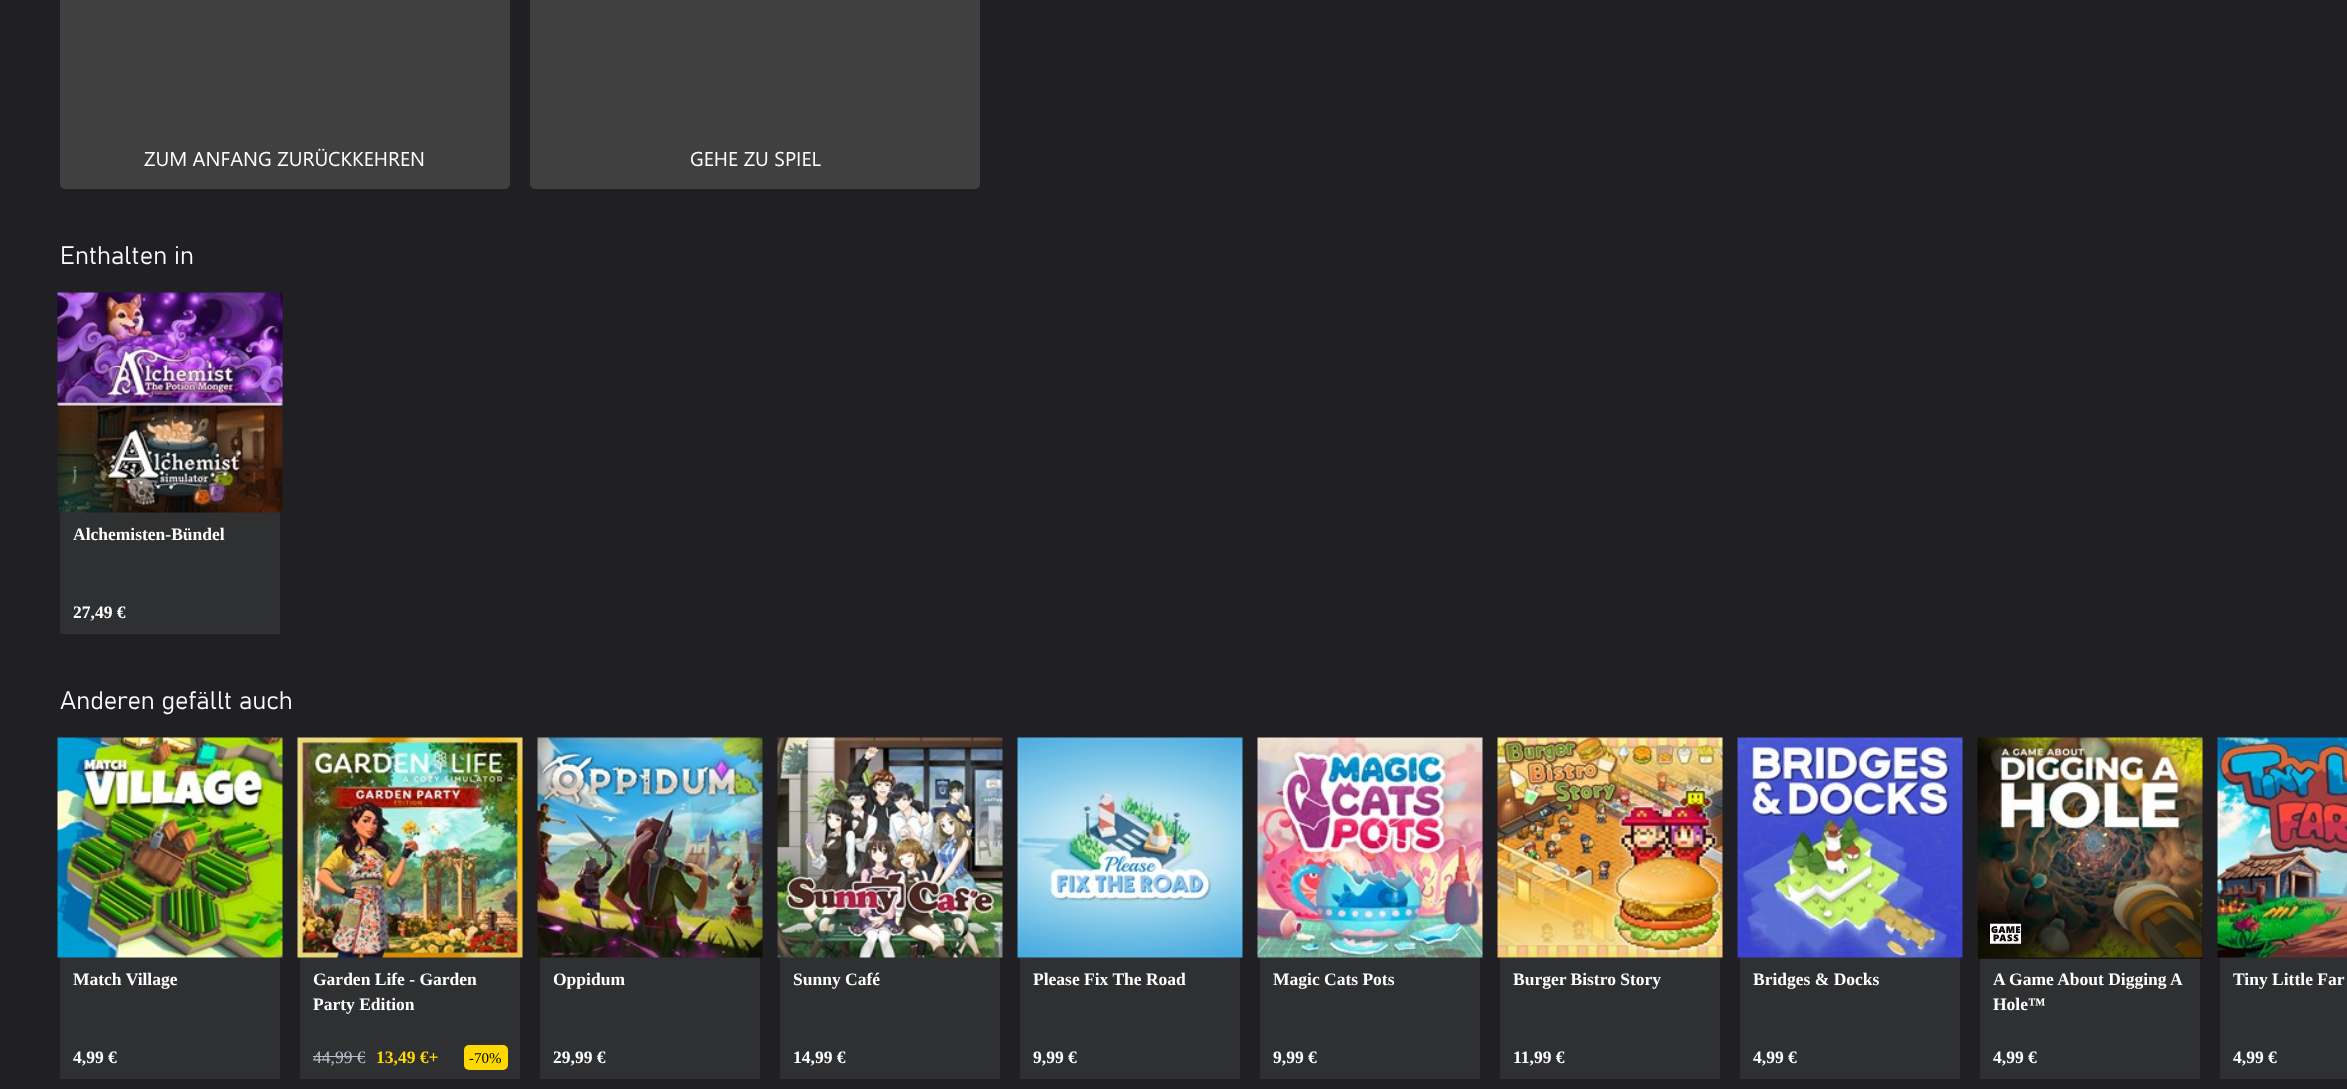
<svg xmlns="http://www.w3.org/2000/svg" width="2347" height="1089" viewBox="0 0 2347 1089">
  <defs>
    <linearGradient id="g1" gradientUnits="userSpaceOnUse" x1="2090" y1="739" x2="2090" y2="959"><stop offset="0.55" stop-color="#000000" stop-opacity="0"/><stop offset="0.85" stop-color="#000000" stop-opacity="0.6"/></linearGradient>
    <clipPath id="clip1"><rect x="2233" y="968" width="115" height="25"/></clipPath>
  </defs>
  <rect width="100%" height="100%" fill="#201f24"/>
  <rect x="60" y="-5" width="450" height="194" rx="5" fill="#404040"/>
  <text x="144" y="166" font-family="Segoe UI" font-size="20" fill="#ffffff">ZUM ANFANG ZURÜCKKEHREN</text>
  <rect x="530" y="-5" width="450" height="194" rx="5" fill="#404040"/>
  <text x="690" y="166" font-family="Segoe UI" font-size="20" fill="#ffffff">GEHE ZU SPIEL</text>
  <text x="60" y="264" font-family="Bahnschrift" font-size="25" font-weight="300" fill="#ffffff">Enthalten in</text>
  <rect x="60" y="512" width="220" height="122" fill="#2f3032"/>
  <image x="57" y="292" width="226" height="221" href="img1.png"/>
  <text x="73" y="540" font-family="Liberation Serif" font-size="17.5" font-weight="bold" fill="#ffffff">Alchemisten-Bündel</text>
  <text x="73" y="618" font-family="Liberation Serif" font-size="17.5" font-weight="bold" fill="#ffffff">27,49 €</text>
  <text x="60" y="709" font-family="Bahnschrift" font-size="25" font-weight="300" fill="#ffffff">Anderen gefällt auch</text>
  <rect x="60" y="957" width="220" height="122" fill="#2f3032"/>
  <image x="57" y="737" width="226" height="221" href="img2.png"/>
  <text x="73" y="985" font-family="Liberation Serif" font-size="17.5" font-weight="bold" fill="#ffffff">Match Village</text>
  <text x="73" y="1063" font-family="Liberation Serif" font-size="17.5" font-weight="bold" fill="#ffffff">4,99 €</text>
  <rect x="300" y="957" width="220" height="122" fill="#2f3032"/>
  <image x="297" y="737" width="226" height="221" href="img3.png"/>
  <text x="313" y="985" font-family="Liberation Serif" font-size="17.5" font-weight="bold" fill="#ffffff">Garden Life - Garden</text>
  <text x="313" y="1010" font-family="Liberation Serif" font-size="17.5" font-weight="bold" fill="#ffffff">Party Edition</text>
  <text x="313" y="1063" font-family="Liberation Serif" font-size="17.5" fill="#b9bfcd">44,99 €</text>
  <rect x="313" y="1056" width="52" height="1" fill="#b9bfcd"/>
  <text x="376" y="1063" font-family="Liberation Serif" font-size="17.5" font-weight="bold" fill="#ffd800">13,49 €+</text>
  <rect x="464" y="1045" width="44" height="25" rx="5" fill="#ffd800"/>
  <text x="469" y="1063" font-family="Liberation Serif" font-size="15" fill="#000000">-70%</text>
  <rect x="540" y="957" width="220" height="122" fill="#2f3032"/>
  <image x="537" y="737" width="226" height="221" href="img4.png"/>
  <text x="553" y="985" font-family="Liberation Serif" font-size="17.5" font-weight="bold" fill="#ffffff">Oppidum</text>
  <text x="553" y="1063" font-family="Liberation Serif" font-size="17.5" font-weight="bold" fill="#ffffff">29,99 €</text>
  <rect x="780" y="957" width="220" height="122" fill="#2f3032"/>
  <image x="777" y="737" width="226" height="221" href="img5.png"/>
  <text x="793" y="985" font-family="Liberation Serif" font-size="17.5" font-weight="bold" fill="#ffffff">Sunny Café</text>
  <text x="793" y="1063" font-family="Liberation Serif" font-size="17.5" font-weight="bold" fill="#ffffff">14,99 €</text>
  <rect x="1020" y="957" width="220" height="122" fill="#2f3032"/>
  <image x="1017" y="737" width="226" height="221" href="img6.png"/>
  <text x="1033" y="985" font-family="Liberation Serif" font-size="17.5" font-weight="bold" fill="#ffffff">Please Fix The Road</text>
  <text x="1033" y="1063" font-family="Liberation Serif" font-size="17.5" font-weight="bold" fill="#ffffff">9,99 €</text>
  <rect x="1260" y="957" width="220" height="122" fill="#2f3032"/>
  <image x="1257" y="737" width="226" height="221" href="img7.png"/>
  <text x="1273" y="985" font-family="Liberation Serif" font-size="17.5" font-weight="bold" fill="#ffffff">Magic Cats Pots</text>
  <text x="1273" y="1063" font-family="Liberation Serif" font-size="17.5" font-weight="bold" fill="#ffffff">9,99 €</text>
  <rect x="1500" y="957" width="220" height="122" fill="#2f3032"/>
  <image x="1497" y="737" width="226" height="221" href="img8.png"/>
  <text x="1513" y="985" font-family="Liberation Serif" font-size="17.5" font-weight="bold" fill="#ffffff">Burger Bistro Story</text>
  <text x="1513" y="1063" font-family="Liberation Serif" font-size="17.5" font-weight="bold" fill="#ffffff">11,99 €</text>
  <rect x="1740" y="957" width="220" height="122" fill="#2f3032"/>
  <image x="1737" y="737" width="226" height="221" href="img9.png"/>
  <text x="1753" y="985" font-family="Liberation Serif" font-size="17.5" font-weight="bold" fill="#ffffff">Bridges &amp; Docks</text>
  <text x="1753" y="1063" font-family="Liberation Serif" font-size="17.5" font-weight="bold" fill="#ffffff">4,99 €</text>
  <rect x="1980" y="957" width="220" height="122" fill="#2f3032"/>
  <image x="1977" y="737" width="226" height="221" href="img10.png"/>
  <rect x="1978" y="862" width="225" height="97" fill="url(#g1)"/>
  <image x="1990" y="923" width="31" height="21" href="img11.png"/>
  <text x="1993" y="985" font-family="Liberation Serif" font-size="17.5" font-weight="bold" fill="#ffffff">A Game About Digging A</text>
  <text x="1993" y="1010" font-family="Liberation Serif" font-size="17.5" font-weight="bold" fill="#ffffff">Hole™</text>
  <text x="1993" y="1063" font-family="Liberation Serif" font-size="17.5" font-weight="bold" fill="#ffffff">4,99 €</text>
  <rect x="2220" y="957" width="127" height="122" fill="#2f3032"/>
  <image x="2217" y="737" width="130" height="221" href="img12.png"/>
  <g clip-path="url(#clip1)">
    <text x="2233" y="985" font-family="Liberation Serif" font-size="17.5" font-weight="bold" fill="#ffffff">Tiny Little Far</text>
  </g>
  <text x="2233" y="1063" font-family="Liberation Serif" font-size="17.5" font-weight="bold" fill="#ffffff">4,99 €</text>
</svg>
